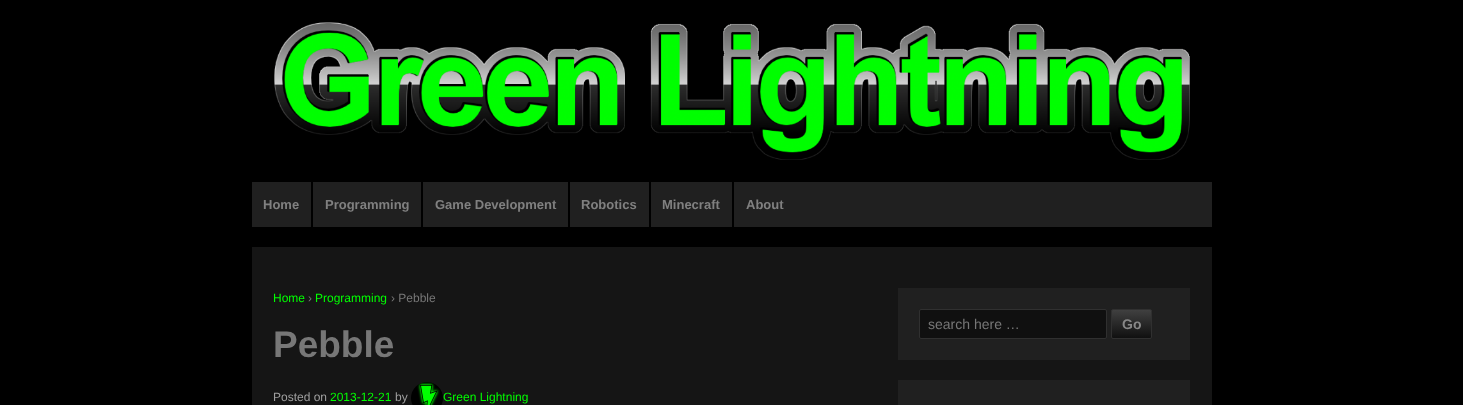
<svg xmlns="http://www.w3.org/2000/svg" width="1463" height="405" viewBox="0 0 1463 405">
  <defs>
    <clipPath id="clip1"><rect x="1111" y="309" width="41" height="30" rx="2"/></clipPath>
    <linearGradient id="g1" gradientUnits="userSpaceOnUse" x1="1132" y1="310" x2="1132" y2="338"><stop offset="0" stop-color="#404040"/><stop offset="1" stop-color="#101010"/></linearGradient>
  </defs>
  <rect width="100%" height="100%" fill="#000000"/>
  <image x="274" y="22" width="916" height="138" href="img1.png"/>
  <rect x="252" y="182" width="960" height="45" fill="#202020"/>
  <rect x="311" y="182" width="2" height="45" fill="#000000"/>
  <text x="263" y="209" font-family="Liberation Sans" font-size="13" font-weight="bold" fill="#808080">Home</text>
  <rect x="421" y="182" width="2" height="45" fill="#000000"/>
  <text x="325" y="209" font-family="Liberation Sans" font-size="13" font-weight="bold" fill="#808080">Programming</text>
  <rect x="568" y="182" width="2" height="45" fill="#000000"/>
  <text x="435" y="209" font-family="Liberation Sans" font-size="13" font-weight="bold" fill="#808080">Game Development</text>
  <rect x="649" y="182" width="2" height="45" fill="#000000"/>
  <text x="581" y="209" font-family="Liberation Sans" font-size="13" font-weight="bold" fill="#808080">Robotics</text>
  <rect x="732" y="182" width="2" height="45" fill="#000000"/>
  <text x="662" y="209" font-family="Liberation Sans" font-size="13" font-weight="bold" fill="#808080">Minecraft</text>
  <text x="746" y="209" font-family="Liberation Sans" font-size="13" font-weight="bold" fill="#808080">About</text>
  <rect x="252" y="247" width="960" height="158" fill="#151515"/>
  <text x="273" y="302" font-family="Liberation Sans" font-size="12" fill="#00ff00">Home</text>
  <text x="308" y="302" font-family="Liberation Sans" font-size="12" fill="#777777">›</text>
  <text x="315" y="302" font-family="Liberation Sans" font-size="12" fill="#00ff00">Programming</text>
  <text x="391" y="302" font-family="Liberation Sans" font-size="12" fill="#777777">› Pebble</text>
  <text x="273" y="357" font-family="Liberation Sans" font-size="37" font-weight="bold" fill="#777777">Pebble</text>
  <text x="273" y="401" font-family="Liberation Sans" font-size="12" fill="#9f9f9f">Posted on</text>
  <text x="330" y="401" font-family="Liberation Sans" font-size="12" fill="#00ff00">2013-12-21</text>
  <text x="395" y="401" font-family="Liberation Sans" font-size="12" fill="#9f9f9f">by</text>
  <image x="411" y="382" width="32" height="23" href="img2.png"/>
  <text x="443" y="401" font-family="Liberation Sans" font-size="12" fill="#00ff00">Green Lightning</text>
  <rect x="898" y="288" width="292" height="72" fill="#202020"/>
  <rect x="919.5" y="309.5" width="187" height="29" rx="1.5" fill="#101010" stroke="#303030"/>
  <text x="928" y="329" font-family="Liberation Sans" font-size="14" fill="#777777">search here …</text>
  <g clip-path="url(#clip1)">
    <rect x="1111" y="310" width="41" height="28" fill="url(#g1)"/>
  </g>
  <rect x="1111.5" y="309.5" width="40" height="29" rx="1.5" fill="none" stroke="#303030"/>
  <text x="1122" y="329" font-family="Liberation Sans" font-size="14" font-weight="bold" fill="#888888">Go</text>
  <rect x="898" y="380" width="292" height="25" fill="#202020"/>
</svg>
